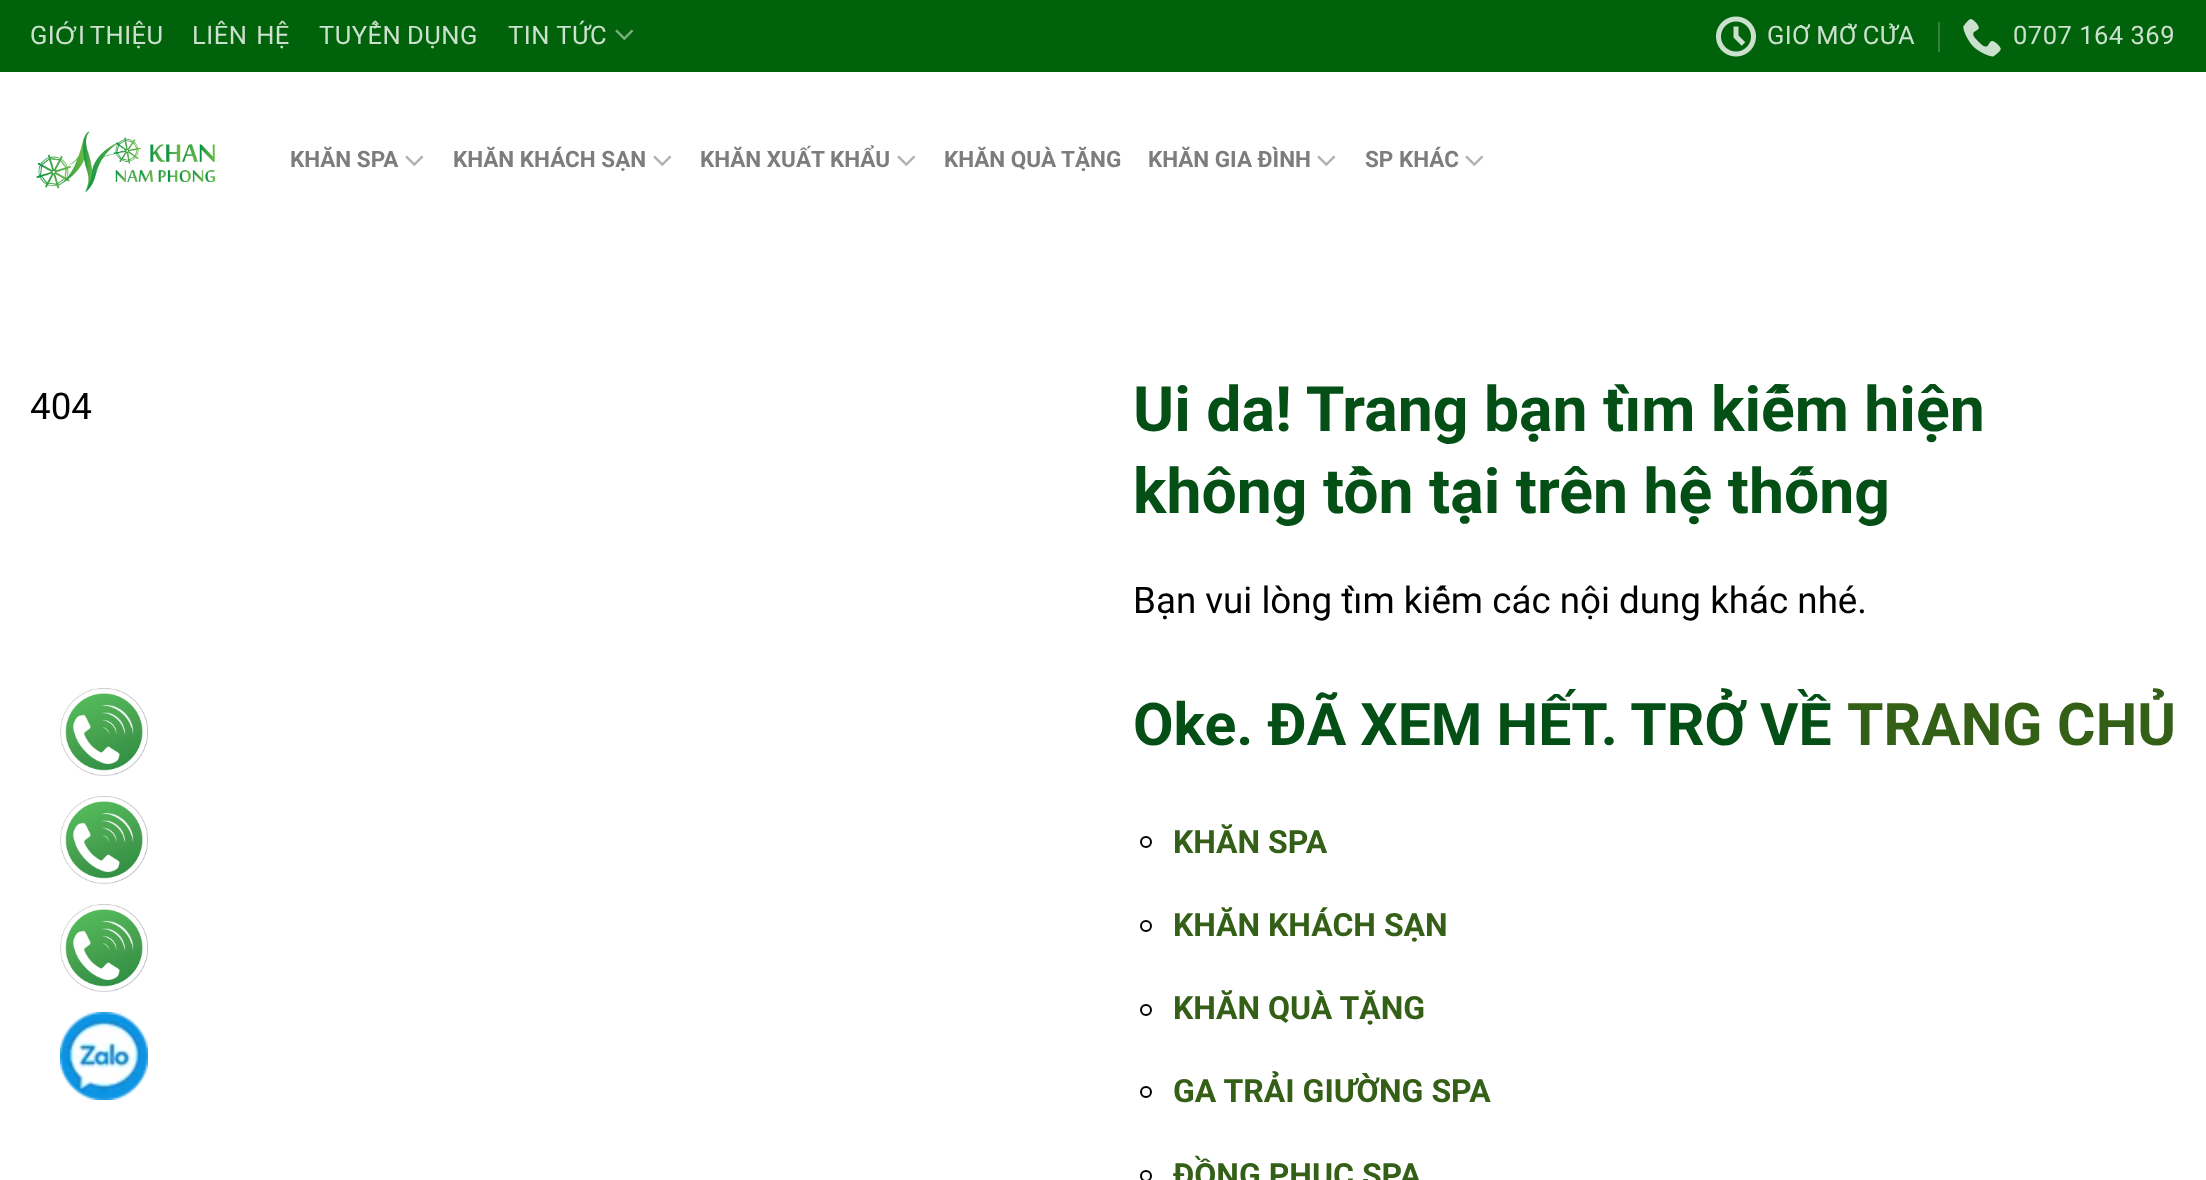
<svg xmlns="http://www.w3.org/2000/svg" width="2206" height="1180" viewBox="0 0 2206 1180">
  <rect width="100%" height="100%" fill="#ffffff"/>
  <rect x="0" y="0" width="2206" height="72" fill="#00630b"/>
  <text x="30" y="44" font-family="Roboto" font-size="25.5" letter-spacing="0.5" fill="#cce0ce">GI</text>
  <text x="55" y="44" font-family="Liberation Sans" font-size="25.5" letter-spacing="0.5" fill="#cce0ce">Ớ</text>
  <text x="78" y="44" word-spacing="-2" font-family="Roboto" font-size="25.5" letter-spacing="0.5" fill="#cce0ce">I THIỆU</text>
  <text x="192" y="44" word-spacing="2" font-family="Roboto" font-size="25.5" letter-spacing="0.5" fill="#cce0ce">LIÊN HỆ</text>
  <text x="319" y="44" word-spacing="-1" font-family="Roboto" font-size="25.5" letter-spacing="0.5" fill="#cce0ce">TUYỂN DỤNG</text>
  <text x="508" y="44" font-family="Roboto" font-size="25.5" letter-spacing="0.5" fill="#cce0ce">TIN TỨC</text>
  <image x="615" y="29" width="19" height="11" href="img1.png"/>
  <image x="1716" y="16" width="40" height="41" href="img2.png"/>
  <text x="1767" y="44" word-spacing="-1" font-family="Roboto" font-size="25.5" letter-spacing="0.5" fill="#cce0ce">GIỜ MỞ CỬA</text>
  <rect x="1938" y="22" width="2" height="30" fill="#33823c"/>
  <image x="1963" y="19" width="38" height="38" href="img3.png"/>
  <text x="2013" y="44" font-family="Roboto" font-size="25.5" letter-spacing="0.5" fill="#cce0ce">0707 164 369</text>
  <image x="36" y="131" width="180" height="62" href="img4.png"/>
  <text x="290" y="167" font-family="Roboto" font-size="22.5" font-weight="bold" fill="#7d7d7d">KHĂN SPA</text>
  <image x="405" y="155" width="19" height="11" href="img5.png"/>
  <text x="453" y="167" font-family="Roboto" font-size="22.5" font-weight="bold" fill="#7d7d7d">KHĂN KHÁCH SẠN</text>
  <image x="653" y="155" width="19" height="11" href="img5.png"/>
  <text x="700" y="167" font-family="Roboto" font-size="22.5" font-weight="bold" fill="#7d7d7d">KHĂN XUẤT KHẨU</text>
  <image x="897" y="155" width="19" height="11" href="img5.png"/>
  <text x="944" y="167" font-family="Roboto" font-size="22.5" font-weight="bold" fill="#7d7d7d">KHĂN QUÀ TẶNG</text>
  <text x="1148" y="167" font-family="Roboto" font-size="22.5" font-weight="bold" fill="#7d7d7d">KHĂN GIA ĐÌNH</text>
  <image x="1317" y="155" width="19" height="11" href="img5.png"/>
  <text x="1365" y="167" font-family="Roboto" font-size="22.5" font-weight="bold" fill="#7d7d7d">SP KHÁC</text>
  <image x="1465" y="155" width="19" height="11" href="img5.png"/>
  <text x="30" y="419" font-family="Roboto" font-size="36.75" fill="#000000">404</text>
  <text x="1133" y="431" font-family="Roboto" font-size="62.5" font-weight="bold" fill="#034f16">Ui da! Trang bạn tìm kiếm hiện</text>
  <text x="1133" y="513" font-family="Roboto" font-size="62.5" font-weight="bold" fill="#034f16">không tồn tại trên hệ thống</text>
  <text x="1133" y="613" font-family="Roboto" font-size="36.75" fill="#000000">Bạn vui lòng tìm kiếm các nội dung khác nhé.</text>
  <text x="1133" y="745" word-spacing="-0.5" font-family="Roboto" font-size="58.9" font-weight="bold" fill="#034f16">Oke. ĐÃ XEM HẾT. TRỞ VỀ</text>
  <text x="1847" y="745" font-family="Roboto" font-size="58.9" font-weight="bold" fill="#345f16">TRANG CHỦ</text>
  <circle cx="1146" cy="842" r="5" fill="none" stroke="#000000" stroke-width="2"/>
  <text x="1173" y="853" font-family="Roboto" font-size="32" font-weight="bold" fill="#345f16">KHĂN SPA</text>
  <circle cx="1146" cy="926" r="5" fill="none" stroke="#000000" stroke-width="2"/>
  <text x="1173" y="936" font-family="Roboto" font-size="32" font-weight="bold" fill="#345f16">KHĂN KHÁCH SẠN</text>
  <circle cx="1146" cy="1010" r="5" fill="none" stroke="#000000" stroke-width="2"/>
  <text x="1173" y="1019" font-family="Roboto" font-size="32" font-weight="bold" fill="#345f16">KHĂN QUÀ TẶNG</text>
  <circle cx="1146" cy="1092" r="5" fill="none" stroke="#000000" stroke-width="2"/>
  <text x="1173" y="1102" font-family="Roboto" font-size="32" font-weight="bold" fill="#345f16">GA TRẢI GIƯỜNG SPA</text>
  <circle cx="1146" cy="1176" r="5" fill="none" stroke="#000000" stroke-width="2"/>
  <text x="1173" y="1186" font-family="Roboto" font-size="32" font-weight="bold" fill="#345f16">ĐỒNG PHỤC SPA</text>
  <image x="60" y="688" width="88" height="88" href="img6.png"/>
  <image x="60" y="796" width="88" height="88" href="img6.png"/>
  <image x="60" y="904" width="88" height="88" href="img6.png"/>
  <image x="60" y="1012" width="88" height="88" href="img7.png"/>
</svg>
